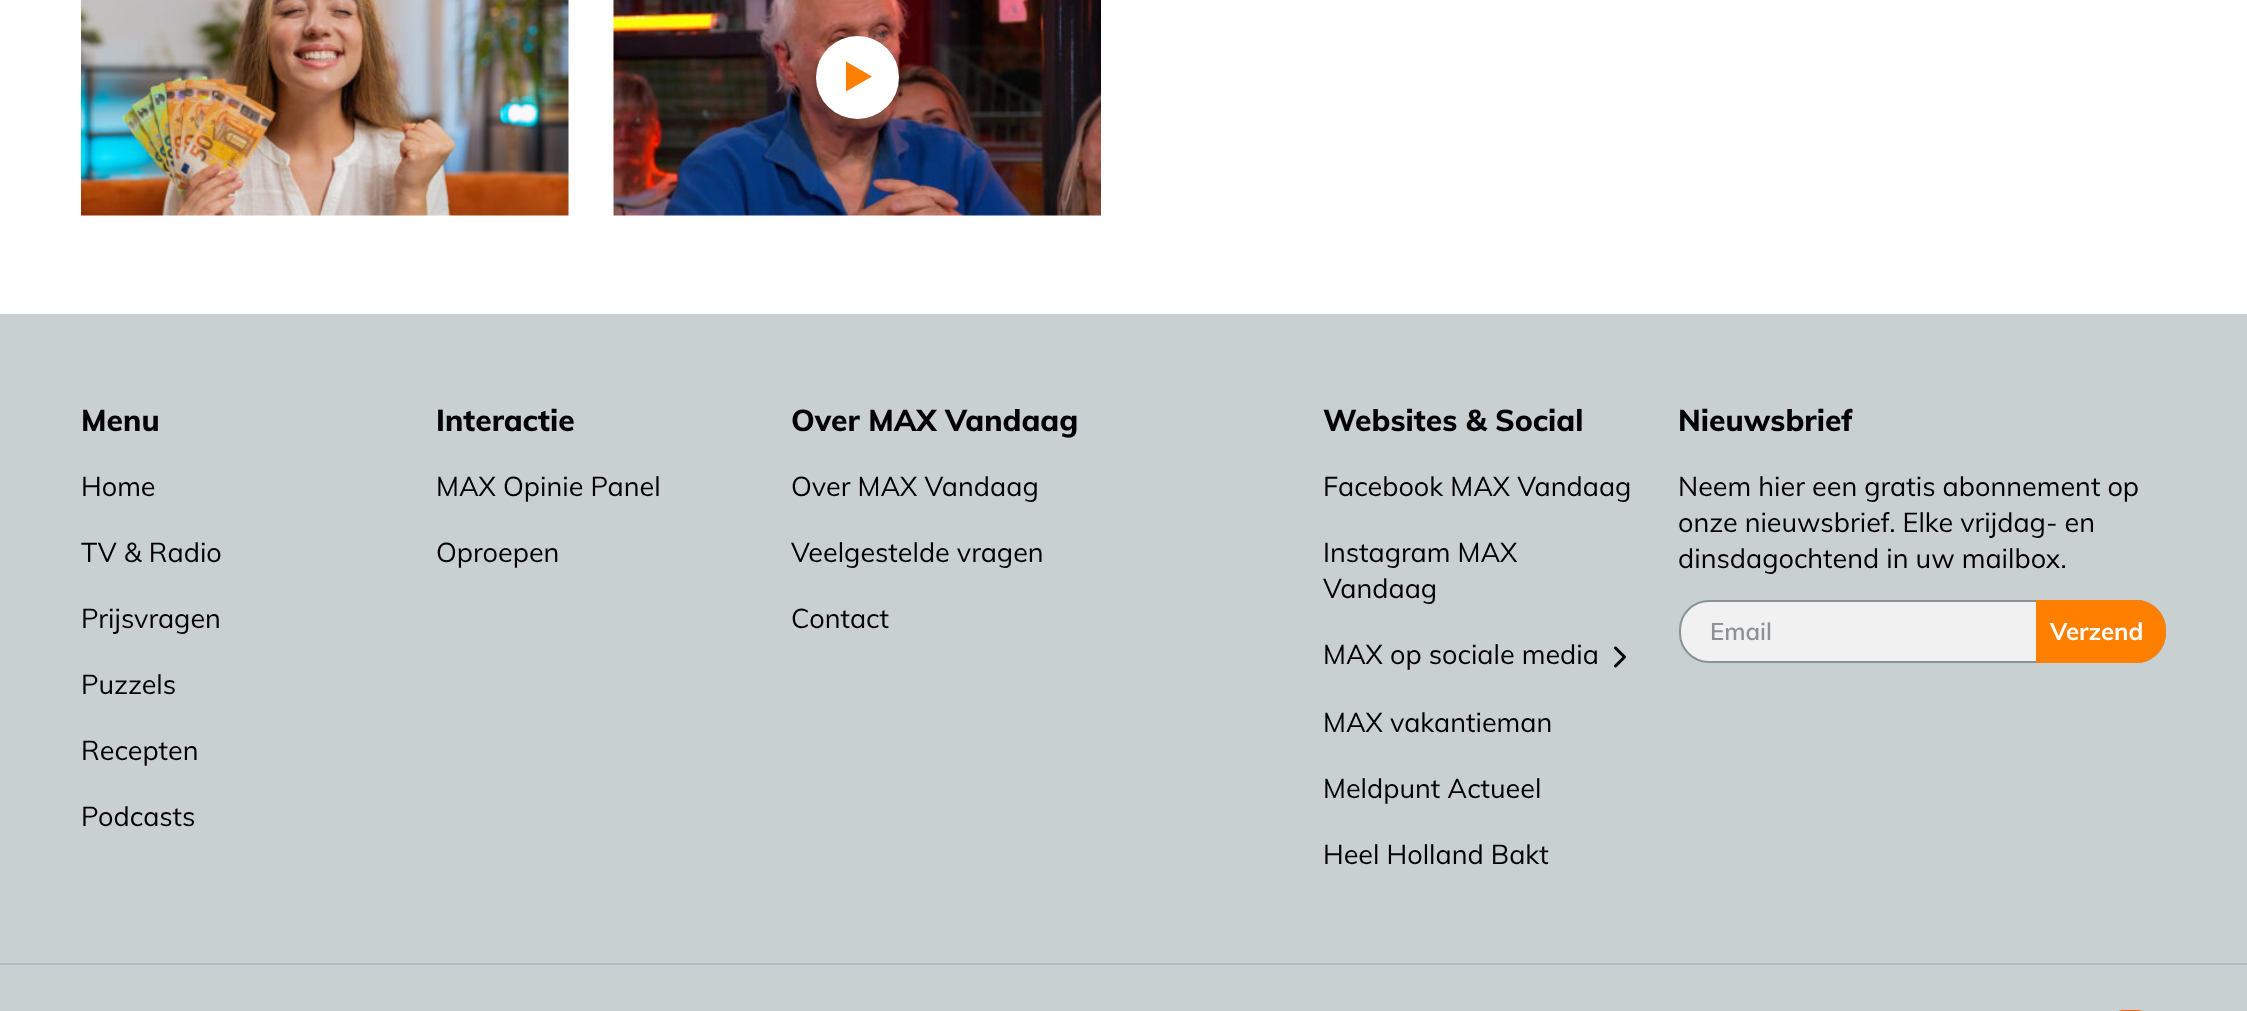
<svg xmlns="http://www.w3.org/2000/svg" width="2247" height="1011" viewBox="0 0 2247 1011">
  <defs>
    <filter id="blur1" x="-50%" y="-200%" width="200%" height="500%"><feGaussianBlur stdDeviation="4"/></filter>
  </defs>
  <rect width="100%" height="100%" fill="#ffffff"/>
  <image x="81" y="0" width="488" height="216" href="img1.png"/>
  <image x="613" y="0" width="488" height="216" href="img2.png"/>
  <rect x="816" y="44" width="83" height="82" rx="41" fill="#000000" fill-opacity="0.3" filter="url(#blur1)"/>
  <circle cx="857.5" cy="77.5" r="41.5" fill="#ffffff"/>
  <path d="M872 76.5L846 91.5V61.5Z" fill="#ff8000"/>
  <rect x="0" y="314" width="2247" height="697" fill="#c8d0d2"/>
  <text x="81" y="431" font-family="Muli" font-size="30" font-weight="800" fill="#000000">Menu</text>
  <text x="81" y="496" font-family="Muli" font-size="27" fill="#000000">Home</text>
  <text x="81" y="562" font-family="Muli" font-size="27" fill="#000000">TV &amp; Radio</text>
  <text x="81" y="628" font-family="Muli" font-size="27" fill="#000000">Prijsvragen</text>
  <text x="81" y="694" font-family="Muli" font-size="27" fill="#000000">Puzzels</text>
  <text x="81" y="760" font-family="Muli" font-size="27" fill="#000000">Recepten</text>
  <text x="81" y="826" font-family="Muli" font-size="27" fill="#000000">Podcasts</text>
  <text x="436" y="431" font-family="Muli" font-size="30" font-weight="800" fill="#000000">Interactie</text>
  <text x="436" y="496" font-family="Muli" font-size="27" fill="#000000">MAX Opinie Panel</text>
  <text x="436" y="562" font-family="Muli" font-size="27" fill="#000000">Oproepen</text>
  <text x="791" y="431" font-family="Muli" font-size="30" font-weight="800" fill="#000000">Over MAX Vandaag</text>
  <text x="791" y="496" font-family="Muli" font-size="27" fill="#000000">Over MAX Vandaag</text>
  <text x="791" y="562" font-family="Muli" font-size="27" fill="#000000">Veelgestelde vragen</text>
  <text x="791" y="628" font-family="Muli" font-size="27" fill="#000000">Contact</text>
  <text x="1323" y="431" font-family="Muli" font-size="30" font-weight="800" fill="#000000">Websites &amp; Social</text>
  <text x="1323" y="496" font-family="Muli" font-size="27" fill="#000000">Facebook MAX Vandaag</text>
  <text x="1323" y="562" font-family="Muli" font-size="27" fill="#000000">Instagram MAX</text>
  <text x="1323" y="598" font-family="Muli" font-size="27" fill="#000000">Vandaag</text>
  <text x="1323" y="664" font-family="Muli" font-size="27" fill="#000000">MAX op sociale media</text>
  <image x="1614" y="646" width="12" height="22" href="img3.png"/>
  <text x="1323" y="732" font-family="Muli" font-size="27" fill="#000000">MAX vakantieman</text>
  <text x="1323" y="798" font-family="Muli" font-size="27" fill="#000000">Meldpunt Actueel</text>
  <text x="1323" y="864" font-family="Muli" font-size="27" fill="#000000">Heel Holland Bakt</text>
  <text x="1678" y="431" font-family="Muli" font-size="30" font-weight="800" fill="#000000">Nieuwsbrief</text>
  <text x="1678" y="496" font-family="Muli" font-size="27" fill="#000000">Neem hier een gratis abonnement op</text>
  <text x="1678" y="532" font-family="Muli" font-size="27" fill="#000000">onze nieuwsbrief. Elke vrijdag- en</text>
  <text x="1678" y="568" font-family="Muli" font-size="27" fill="#000000">dinsdagochtend in uw mailbox.</text>
  <rect x="1680" y="601" width="485" height="61" rx="29" fill="#f1f1f1" stroke="#8a9294" stroke-width="2"/>
  <text x="1710" y="640" font-family="Muli" font-size="24" font-weight="600" fill="#8a9294">Email</text>
  <path d="M2036 600H2136C2152.5 600 2166 613.5 2166 630V633C2166 649.5 2152.5 663 2136 663H2036Z" fill="#ff8000"/>
  <text x="2050" y="640" font-family="Muli" font-size="24" font-weight="bold" fill="#ffffff">Verzend</text>
  <rect x="0" y="963" width="2247" height="2" fill="#b1bdc1"/>
  <image x="2118" y="1010" width="24" height="1" href="img4.png"/>
</svg>
